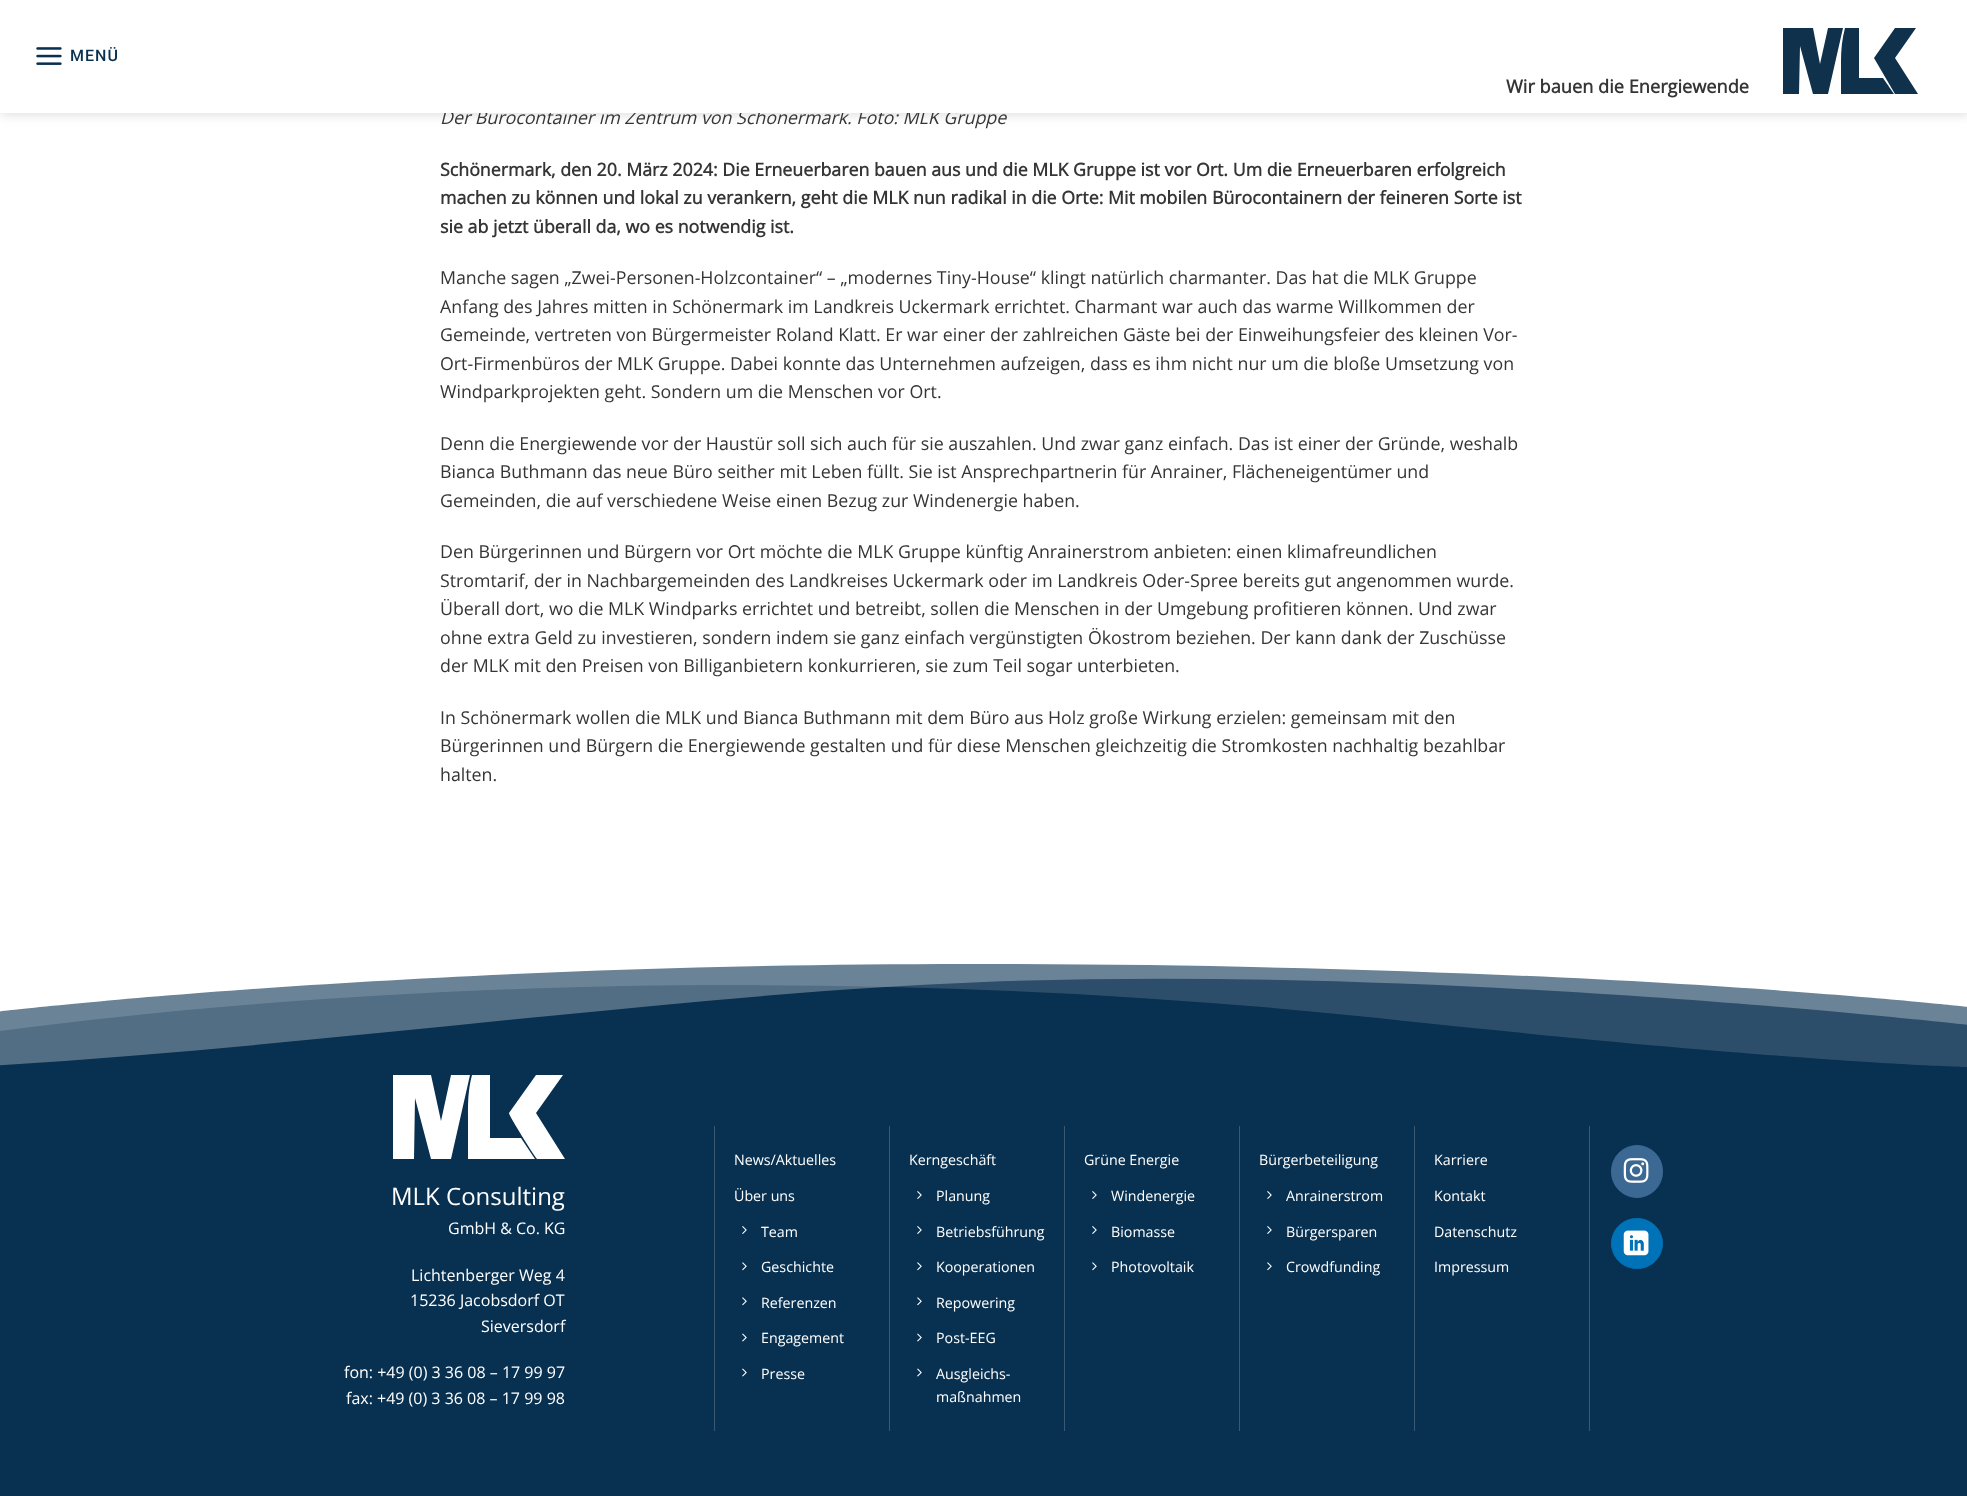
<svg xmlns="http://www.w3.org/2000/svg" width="1967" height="1496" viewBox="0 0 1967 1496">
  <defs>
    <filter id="blur1" x="-50%" y="-200%" width="200%" height="500%"><feGaussianBlur stdDeviation="6"/></filter>
    <clipPath id="clip1"><rect x="0" y="950" width="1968" height="136"/></clipPath>
  </defs>
  <rect width="100%" height="100%" fill="#ffffff"/>
  <rect x="1" y="1" width="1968" height="113" fill="#000000" fill-opacity="0.15" filter="url(#blur1)"/>
  <text x="440" y="124" font-family="Open Sans" font-size="17.8" font-style="italic" fill="#353535">Der Bürocontainer im Zentrum von Schönermark. Foto: MLK Gruppe</text>
  <rect x="0" y="0" width="1967" height="113" fill="#ffffff"/>
  <image x="36" y="47" width="26" height="18" href="img1.png"/>
  <text x="70" y="61" font-family="Roboto" font-size="16" font-weight="500" letter-spacing="1" fill="#083050">MENÜ</text>
  <text x="1506" y="93" font-family="Open Sans" font-size="18.2" font-weight="bold" fill="#353535">Wir bauen die Energiewende</text>
  <path d="M1813 94L1800 46L1799 94H1783V28H1813L1820 64L1828 28H1843L1828 94M1894 94H1841V61C1841 50 1842 39 1845 28H1859V78H1883M1895 28H1916L1895 58L1918 94H1895L1874 58" fill="#10314b"/>
  <text x="440" y="176" font-family="Open Sans" font-size="17.8" font-weight="bold" fill="#353535">Schönermark, den 20. März 2024: Die Erneuerbaren bauen aus und die MLK Gruppe ist vor Ort. Um die Erneuerbaren erfolgreich</text>
  <text x="440" y="204" font-family="Open Sans" font-size="17.8" font-weight="bold" fill="#353535">machen zu können und lokal zu verankern, geht die MLK nun radikal in die Orte: Mit mobilen Bürocontainern der feineren Sorte ist</text>
  <text x="440" y="233" font-family="Open Sans" font-size="17.8" font-weight="bold" fill="#353535">sie ab jetzt überall da, wo es notwendig ist.</text>
  <text x="440" y="284" font-family="Open Sans" font-size="17.8" fill="#353535">Manche sagen „Zwei-Personen-Holzcontainer“ – „modernes Tiny-House“ klingt natürlich charmanter. Das hat die MLK Gruppe</text>
  <text x="440" y="313" font-family="Open Sans" font-size="17.8" fill="#353535">Anfang des Jahres mitten in Schönermark im Landkreis Uckermark errichtet. Charmant war auch das warme Willkommen der</text>
  <text x="440" y="341" font-family="Open Sans" font-size="17.8" fill="#353535">Gemeinde, vertreten von Bürgermeister Roland Klatt. Er war einer der zahlreichen Gäste bei der Einweihungsfeier des kleinen Vor-</text>
  <text x="440" y="370" font-family="Open Sans" font-size="17.8" fill="#353535">Ort-Firmenbüros der MLK Gruppe. Dabei konnte das Unternehmen aufzeigen, dass es ihm nicht nur um die bloße Umsetzung von</text>
  <text x="440" y="398" font-family="Open Sans" font-size="17.8" fill="#353535">Windparkprojekten geht. Sondern um die Menschen vor Ort.</text>
  <text x="440" y="450" font-family="Open Sans" font-size="17.8" fill="#353535">Denn die Energiewende vor der Haustür soll sich auch für sie auszahlen. Und zwar ganz einfach. Das ist einer der Gründe, weshalb</text>
  <text x="440" y="478" font-family="Open Sans" font-size="17.8" fill="#353535">Bianca Buthmann das neue Büro seither mit Leben füllt. Sie ist Ansprechpartnerin für Anrainer, Flächeneigentümer und</text>
  <text x="440" y="507" font-family="Open Sans" font-size="17.8" fill="#353535">Gemeinden, die auf verschiedene Weise einen Bezug zur Windenergie haben.</text>
  <text x="440" y="558" font-family="Open Sans" font-size="17.8" fill="#353535">Den Bürgerinnen und Bürgern vor Ort möchte die MLK Gruppe künftig Anrainerstrom anbieten: einen klimafreundlichen</text>
  <text x="440" y="587" font-family="Open Sans" font-size="17.8" fill="#353535">Stromtarif, der in Nachbargemeinden des Landkreises Uckermark oder im Landkreis Oder-Spree bereits gut angenommen wurde.</text>
  <text x="440" y="615" font-family="Open Sans" font-size="17.8" fill="#353535">Überall dort, wo die MLK Windparks errichtet und betreibt, sollen die Menschen in der Umgebung profitieren können. Und zwar</text>
  <text x="440" y="644" font-family="Open Sans" font-size="17.8" fill="#353535">ohne extra Geld zu investieren, sondern indem sie ganz einfach vergünstigten Ökostrom beziehen. Der kann dank der Zuschüsse</text>
  <text x="440" y="672" font-family="Open Sans" font-size="17.8" fill="#353535">der MLK mit den Preisen von Billiganbietern konkurrieren, sie zum Teil sogar unterbieten.</text>
  <text x="440" y="724" font-family="Open Sans" font-size="17.8" fill="#353535">In Schönermark wollen die MLK und Bianca Buthmann mit dem Büro aus Holz große Wirkung erzielen: gemeinsam mit den</text>
  <text x="440" y="752" font-family="Open Sans" font-size="17.8" fill="#353535">Bürgerinnen und Bürgern die Energiewende gestalten und für diese Menschen gleichzeitig die Stromkosten nachhaltig bezahlbar</text>
  <text x="440" y="781" font-family="Open Sans" font-size="17.8" fill="#353535">halten.</text>
  <rect x="0" y="964" width="1967" height="532" fill="#083050"/>
  <g clip-path="url(#clip1)">
    <path d="M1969 1067C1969 1067 1794 1063 1378 1018C866 964 365 982-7 1032L-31 994L-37 945H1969Z" fill="#ffffff" fill-opacity="0.15"/>
  </g>
  <path d="M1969 1025C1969 1025 1435 964 984 982C674 994 334 1046-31 1067V950H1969Z" fill="#ffffff" fill-opacity="0.3"/>
  <path d="M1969 1007C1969 1007 1598 964 968 964C397 964-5 1012-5 1012V950H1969Z" fill="#ffffff"/>
  <path d="M431 1159L415 1098L414 1159H393V1075H431L441 1121L451 1075H470L451 1159M535 1159H468V1117C468 1102 468 1090 472 1075H490V1138H521M536 1075H563L536 1113L565 1159H537C533 1154 509 1116 509 1113" fill="#ffffff"/>
  <text x="391" y="1205" font-family="Open Sans" font-size="24" fill="#ffffff">MLK Consulting</text>
  <text x="448" y="1234" font-family="Open Sans" font-size="16" fill="#ffffff">GmbH &amp; Co. KG</text>
  <text x="411" y="1281" font-family="Open Sans" font-size="16" fill="#ffffff">Lichtenberger Weg 4</text>
  <text x="410" y="1306" font-family="Open Sans" font-size="16" fill="#ffffff">15236 Jacobsdorf OT</text>
  <text x="481" y="1332" font-family="Open Sans" font-size="16" fill="#ffffff">Sieversdorf</text>
  <text x="344" y="1378" font-family="Open Sans" font-size="16" fill="#ffffff">fon: +49 (0) 3 36 08 – 17 99 97</text>
  <text x="346" y="1404" font-family="Open Sans" font-size="16" fill="#ffffff">fax: +49 (0) 3 36 08 – 17 99 98</text>
  <rect x="714" y="1126" width="1" height="305" fill="#395973"/>
  <text x="734" y="1165" font-family="Open Sans" font-size="14.25" fill="#ffffff">News/Aktuelles</text>
  <text x="734" y="1201" font-family="Open Sans" font-size="14.25" fill="#ffffff">Über uns</text>
  <image x="742" y="1226" width="5" height="8" href="img2.png"/>
  <text x="761" y="1237" font-family="Open Sans" font-size="14.25" fill="#ffffff">Team</text>
  <image x="742" y="1262" width="5" height="9" href="img3.png"/>
  <text x="761" y="1272" font-family="Open Sans" font-size="14.25" fill="#ffffff">Geschichte</text>
  <image x="742" y="1297" width="5" height="9" href="img3.png"/>
  <text x="761" y="1308" font-family="Open Sans" font-size="14.25" fill="#ffffff">Referenzen</text>
  <image x="742" y="1333" width="5" height="9" href="img4.png"/>
  <text x="761" y="1343" font-family="Open Sans" font-size="14.25" fill="#ffffff">Engagement</text>
  <image x="742" y="1368" width="5" height="9" href="img4.png"/>
  <text x="761" y="1379" font-family="Open Sans" font-size="14.25" fill="#ffffff">Presse</text>
  <rect x="889" y="1126" width="1" height="305" fill="#395973"/>
  <text x="909" y="1165" font-family="Open Sans" font-size="14.25" fill="#ffffff">Kerngeschäft</text>
  <image x="917" y="1191" width="5" height="8" href="img2.png"/>
  <text x="936" y="1201" font-family="Open Sans" font-size="14.25" fill="#ffffff">Planung</text>
  <image x="917" y="1226" width="5" height="8" href="img2.png"/>
  <text x="936" y="1237" font-family="Open Sans" font-size="14.25" fill="#ffffff">Betriebsführung</text>
  <image x="917" y="1262" width="5" height="9" href="img3.png"/>
  <text x="936" y="1272" font-family="Open Sans" font-size="14.25" fill="#ffffff">Kooperationen</text>
  <image x="917" y="1297" width="5" height="9" href="img3.png"/>
  <text x="936" y="1308" font-family="Open Sans" font-size="14.25" fill="#ffffff">Repowering</text>
  <image x="917" y="1333" width="5" height="9" href="img4.png"/>
  <text x="936" y="1343" font-family="Open Sans" font-size="14.25" fill="#ffffff">Post-EEG</text>
  <image x="917" y="1368" width="5" height="9" href="img4.png"/>
  <text x="936" y="1379" font-family="Open Sans" font-size="14.25" fill="#ffffff">Ausgleichs-</text>
  <text x="936" y="1402" font-family="Open Sans" font-size="14.25" fill="#ffffff">maßnahmen</text>
  <rect x="1064" y="1126" width="1" height="305" fill="#395973"/>
  <text x="1084" y="1165" font-family="Open Sans" font-size="14.25" fill="#ffffff">Grüne Energie</text>
  <image x="1092" y="1191" width="5" height="8" href="img2.png"/>
  <text x="1111" y="1201" font-family="Open Sans" font-size="14.25" fill="#ffffff">Windenergie</text>
  <image x="1092" y="1226" width="5" height="8" href="img2.png"/>
  <text x="1111" y="1237" font-family="Open Sans" font-size="14.25" fill="#ffffff">Biomasse</text>
  <image x="1092" y="1262" width="5" height="9" href="img3.png"/>
  <text x="1111" y="1272" font-family="Open Sans" font-size="14.25" fill="#ffffff">Photovoltaik</text>
  <rect x="1239" y="1126" width="1" height="305" fill="#395973"/>
  <text x="1259" y="1165" font-family="Open Sans" font-size="14.25" fill="#ffffff">Bürgerbeteiligung</text>
  <image x="1267" y="1191" width="5" height="8" href="img2.png"/>
  <text x="1286" y="1201" font-family="Open Sans" font-size="14.25" fill="#ffffff">Anrainerstrom</text>
  <image x="1267" y="1226" width="5" height="8" href="img2.png"/>
  <text x="1286" y="1237" font-family="Open Sans" font-size="14.25" fill="#ffffff">Bürgersparen</text>
  <image x="1267" y="1262" width="5" height="9" href="img3.png"/>
  <text x="1286" y="1272" font-family="Open Sans" font-size="14.25" fill="#ffffff">Crowdfunding</text>
  <rect x="1414" y="1126" width="1" height="305" fill="#395973"/>
  <text x="1434" y="1165" font-family="Open Sans" font-size="14.25" fill="#ffffff">Karriere</text>
  <text x="1434" y="1201" font-family="Open Sans" font-size="14.25" fill="#ffffff">Kontakt</text>
  <text x="1434" y="1237" font-family="Open Sans" font-size="14.25" fill="#ffffff">Datenschutz</text>
  <text x="1434" y="1272" font-family="Open Sans" font-size="14.25" fill="#ffffff">Impressum</text>
  <rect x="1589" y="1126" width="1" height="305" fill="#395973"/>
  <rect x="1611.5" y="1145.5" width="51" height="52" rx="25.5" fill="#3b6994" stroke="#3b6994"/>
  <image x="1623" y="1158" width="26" height="25" href="img5.png"/>
  <rect x="1611.5" y="1218.5" width="51" height="50" rx="25" fill="#0072b7" stroke="#0072b7"/>
  <image x="1623" y="1230" width="26" height="26" href="img6.png"/>
</svg>
